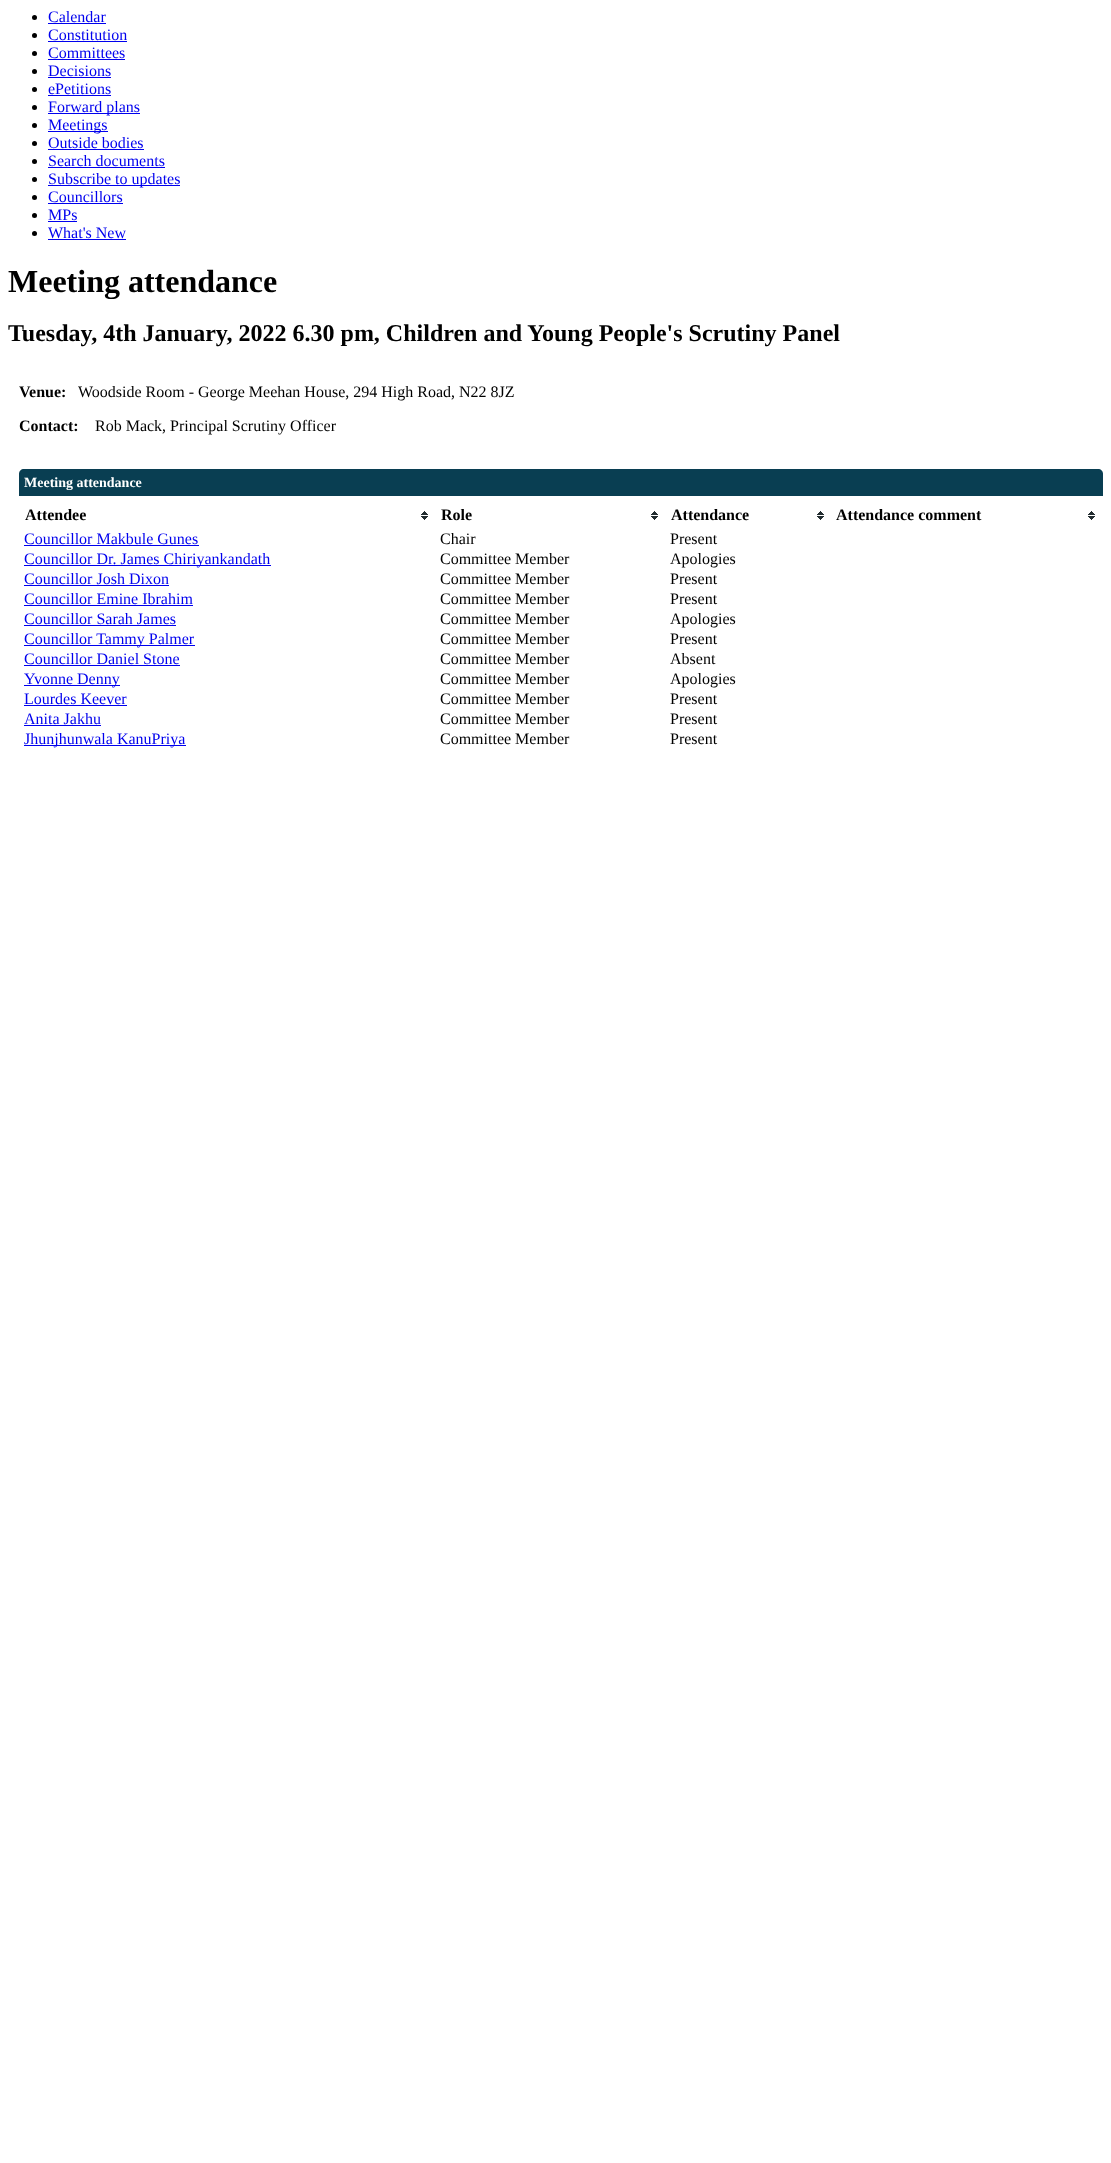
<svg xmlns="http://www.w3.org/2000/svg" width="1111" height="2163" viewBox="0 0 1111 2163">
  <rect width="100%" height="100%" fill="#ffffff"/>
  <circle cx="34.5" cy="17.5" r="2.5" fill="#000000"/>
  <text x="48" y="22" font-family="Liberation Serif" font-size="16" fill="#0000ee">Calendar</text>
  <rect x="48" y="23" width="58" height="1" fill="#0000ee"/>
  <circle cx="34.5" cy="35.5" r="2.5" fill="#000000"/>
  <text x="48" y="40" font-family="Liberation Serif" font-size="16" fill="#0000ee">Constitution</text>
  <rect x="48" y="41" width="79" height="1" fill="#0000ee"/>
  <circle cx="34.5" cy="53.5" r="2.5" fill="#000000"/>
  <text x="48" y="58" font-family="Liberation Serif" font-size="16" fill="#0000ee">Committees</text>
  <rect x="48" y="59" width="77" height="1" fill="#0000ee"/>
  <circle cx="34.5" cy="71.5" r="2.5" fill="#000000"/>
  <text x="48" y="76" font-family="Liberation Serif" font-size="16" fill="#0000ee">Decisions</text>
  <rect x="48" y="77" width="63" height="1" fill="#0000ee"/>
  <circle cx="34.5" cy="89.5" r="2.5" fill="#000000"/>
  <text x="48" y="94" font-family="Liberation Serif" font-size="16" fill="#0000ee">ePetitions</text>
  <rect x="48" y="95" width="63" height="1" fill="#0000ee"/>
  <circle cx="34.5" cy="107.5" r="2.5" fill="#000000"/>
  <rect x="48" y="113" width="92" height="1" fill="#0000ee"/>
  <text x="48" y="112" font-family="Liberation Serif" font-size="16" fill="#0000ee">Forward plans</text>
  <circle cx="34.5" cy="125.5" r="2.5" fill="#000000"/>
  <rect x="48" y="131" width="60" height="1" fill="#0000ee"/>
  <text x="48" y="130" font-family="Liberation Serif" font-size="16" fill="#0000ee">Meetings</text>
  <circle cx="34.5" cy="143.5" r="2.5" fill="#000000"/>
  <text x="48" y="148" font-family="Liberation Serif" font-size="16" fill="#0000ee">Outside bodies</text>
  <rect x="48" y="149" width="96" height="1" fill="#0000ee"/>
  <circle cx="34.5" cy="161.5" r="2.5" fill="#000000"/>
  <text x="48" y="166" font-family="Liberation Serif" font-size="16" fill="#0000ee">Search documents</text>
  <rect x="48" y="167" width="117" height="1" fill="#0000ee"/>
  <circle cx="34.5" cy="179.5" r="2.5" fill="#000000"/>
  <rect x="48" y="185" width="132" height="1" fill="#0000ee"/>
  <text x="48" y="184" font-family="Liberation Serif" font-size="16" fill="#0000ee">Subscribe to updates</text>
  <circle cx="34.5" cy="197.5" r="2.5" fill="#000000"/>
  <text x="48" y="202" font-family="Liberation Serif" font-size="16" fill="#0000ee">Councillors</text>
  <rect x="48" y="203" width="75" height="1" fill="#0000ee"/>
  <circle cx="34.5" cy="215.5" r="2.5" fill="#000000"/>
  <text x="48" y="220" font-family="Liberation Serif" font-size="16" fill="#0000ee">MPs</text>
  <rect x="48" y="221" width="29" height="1" fill="#0000ee"/>
  <circle cx="34.5" cy="233.5" r="2.5" fill="#000000"/>
  <text x="48" y="238" font-family="Liberation Serif" font-size="16" fill="#0000ee">What's New</text>
  <rect x="48" y="239" width="78" height="1" fill="#0000ee"/>
  <text x="8" y="292" font-family="Liberation Serif" font-size="32" font-weight="bold" fill="#000000">Meeting attendance</text>
  <text x="8" y="341" font-family="Liberation Serif" font-size="24" font-weight="bold" fill="#000000">Tuesday, 4th January, 2022 6.30 pm, Children and Young People's Scrutiny Panel</text>
  <text x="19" y="397" font-family="Liberation Serif" font-size="16" font-weight="bold" fill="#000000">Venue:</text>
  <text x="78" y="397" font-family="Liberation Serif" font-size="16" fill="#000000">Woodside Room - George Meehan House, 294 High Road, N22 8JZ</text>
  <text x="19" y="431" font-family="Liberation Serif" font-size="16" font-weight="bold" fill="#000000">Contact:</text>
  <text x="95" y="431" font-family="Liberation Serif" font-size="16" fill="#000000">Rob Mack, Principal Scrutiny Officer</text>
  <path d="M24 469H1098C1101 469 1103 471 1103 474V496H19V474C19 471 21 469 24 469Z" fill="#093e52"/>
  <text x="24" y="487" font-family="Liberation Serif" font-size="14" font-weight="bold" fill="#ffffff">Meeting attendance</text>
  <image x="421" y="511" width="7" height="9" href="img1.png"/>
  <text x="25" y="520" font-family="Liberation Serif" font-size="16" font-weight="bold" fill="#000000">Attendee</text>
  <image x="651" y="511" width="7" height="9" href="img1.png"/>
  <text x="441" y="520" font-family="Liberation Serif" font-size="16" font-weight="bold" fill="#000000">Role</text>
  <image x="817" y="511" width="7" height="9" href="img1.png"/>
  <text x="671" y="520" font-family="Liberation Serif" font-size="16" font-weight="bold" fill="#000000">Attendance</text>
  <image x="1088" y="511" width="7" height="9" href="img1.png"/>
  <text x="836" y="520" font-family="Liberation Serif" font-size="16" font-weight="bold" fill="#000000">Attendance comment</text>
  <text x="24" y="544" font-family="Liberation Serif" font-size="16" fill="#0000ee">Councillor Makbule Gunes</text>
  <rect x="24" y="545" width="175" height="1" fill="#0000ee"/>
  <text x="440" y="544" font-family="Liberation Serif" font-size="16" fill="#000000">Chair</text>
  <text x="670" y="544" font-family="Liberation Serif" font-size="16" fill="#000000">Present</text>
  <rect x="24" y="565" width="247" height="1" fill="#0000ee"/>
  <text x="24" y="564" font-family="Liberation Serif" font-size="16" fill="#0000ee">Councillor Dr. James Chiriyankandath</text>
  <text x="440" y="564" font-family="Liberation Serif" font-size="16" fill="#000000">Committee Member</text>
  <text x="670" y="564" font-family="Liberation Serif" font-size="16" fill="#000000">Apologies</text>
  <text x="24" y="584" font-family="Liberation Serif" font-size="16" fill="#0000ee">Councillor Josh Dixon</text>
  <rect x="24" y="585" width="145" height="1" fill="#0000ee"/>
  <text x="440" y="584" font-family="Liberation Serif" font-size="16" fill="#000000">Committee Member</text>
  <text x="670" y="584" font-family="Liberation Serif" font-size="16" fill="#000000">Present</text>
  <text x="24" y="604" font-family="Liberation Serif" font-size="16" fill="#0000ee">Councillor Emine Ibrahim</text>
  <rect x="24" y="605" width="169" height="1" fill="#0000ee"/>
  <text x="440" y="604" font-family="Liberation Serif" font-size="16" fill="#000000">Committee Member</text>
  <text x="670" y="604" font-family="Liberation Serif" font-size="16" fill="#000000">Present</text>
  <text x="24" y="624" font-family="Liberation Serif" font-size="16" fill="#0000ee">Councillor Sarah James</text>
  <rect x="24" y="625" width="152" height="1" fill="#0000ee"/>
  <text x="440" y="624" font-family="Liberation Serif" font-size="16" fill="#000000">Committee Member</text>
  <text x="670" y="624" font-family="Liberation Serif" font-size="16" fill="#000000">Apologies</text>
  <rect x="24" y="645" width="171" height="1" fill="#0000ee"/>
  <text x="24" y="644" font-family="Liberation Serif" font-size="16" fill="#0000ee">Councillor Tammy Palmer</text>
  <text x="440" y="644" font-family="Liberation Serif" font-size="16" fill="#000000">Committee Member</text>
  <text x="670" y="644" font-family="Liberation Serif" font-size="16" fill="#000000">Present</text>
  <text x="24" y="664" font-family="Liberation Serif" font-size="16" fill="#0000ee">Councillor Daniel Stone</text>
  <rect x="24" y="665" width="156" height="1" fill="#0000ee"/>
  <text x="440" y="664" font-family="Liberation Serif" font-size="16" fill="#000000">Committee Member</text>
  <text x="670" y="664" font-family="Liberation Serif" font-size="16" fill="#000000">Absent</text>
  <rect x="24" y="685" width="96" height="1" fill="#0000ee"/>
  <text x="24" y="684" font-family="Liberation Serif" font-size="16" fill="#0000ee">Yvonne Denny</text>
  <text x="440" y="684" font-family="Liberation Serif" font-size="16" fill="#000000">Committee Member</text>
  <text x="670" y="684" font-family="Liberation Serif" font-size="16" fill="#000000">Apologies</text>
  <text x="24" y="704" font-family="Liberation Serif" font-size="16" fill="#0000ee">Lourdes Keever</text>
  <rect x="24" y="705" width="103" height="1" fill="#0000ee"/>
  <text x="440" y="704" font-family="Liberation Serif" font-size="16" fill="#000000">Committee Member</text>
  <text x="670" y="704" font-family="Liberation Serif" font-size="16" fill="#000000">Present</text>
  <text x="24" y="724" font-family="Liberation Serif" font-size="16" fill="#0000ee">Anita Jakhu</text>
  <rect x="24" y="725" width="77" height="1" fill="#0000ee"/>
  <text x="440" y="724" font-family="Liberation Serif" font-size="16" fill="#000000">Committee Member</text>
  <text x="670" y="724" font-family="Liberation Serif" font-size="16" fill="#000000">Present</text>
  <rect x="24" y="745" width="162" height="1" fill="#0000ee"/>
  <text x="24" y="744" font-family="Liberation Serif" font-size="16" fill="#0000ee">Jhunjhunwala KanuPriya</text>
  <text x="440" y="744" font-family="Liberation Serif" font-size="16" fill="#000000">Committee Member</text>
  <text x="670" y="744" font-family="Liberation Serif" font-size="16" fill="#000000">Present</text>
</svg>
